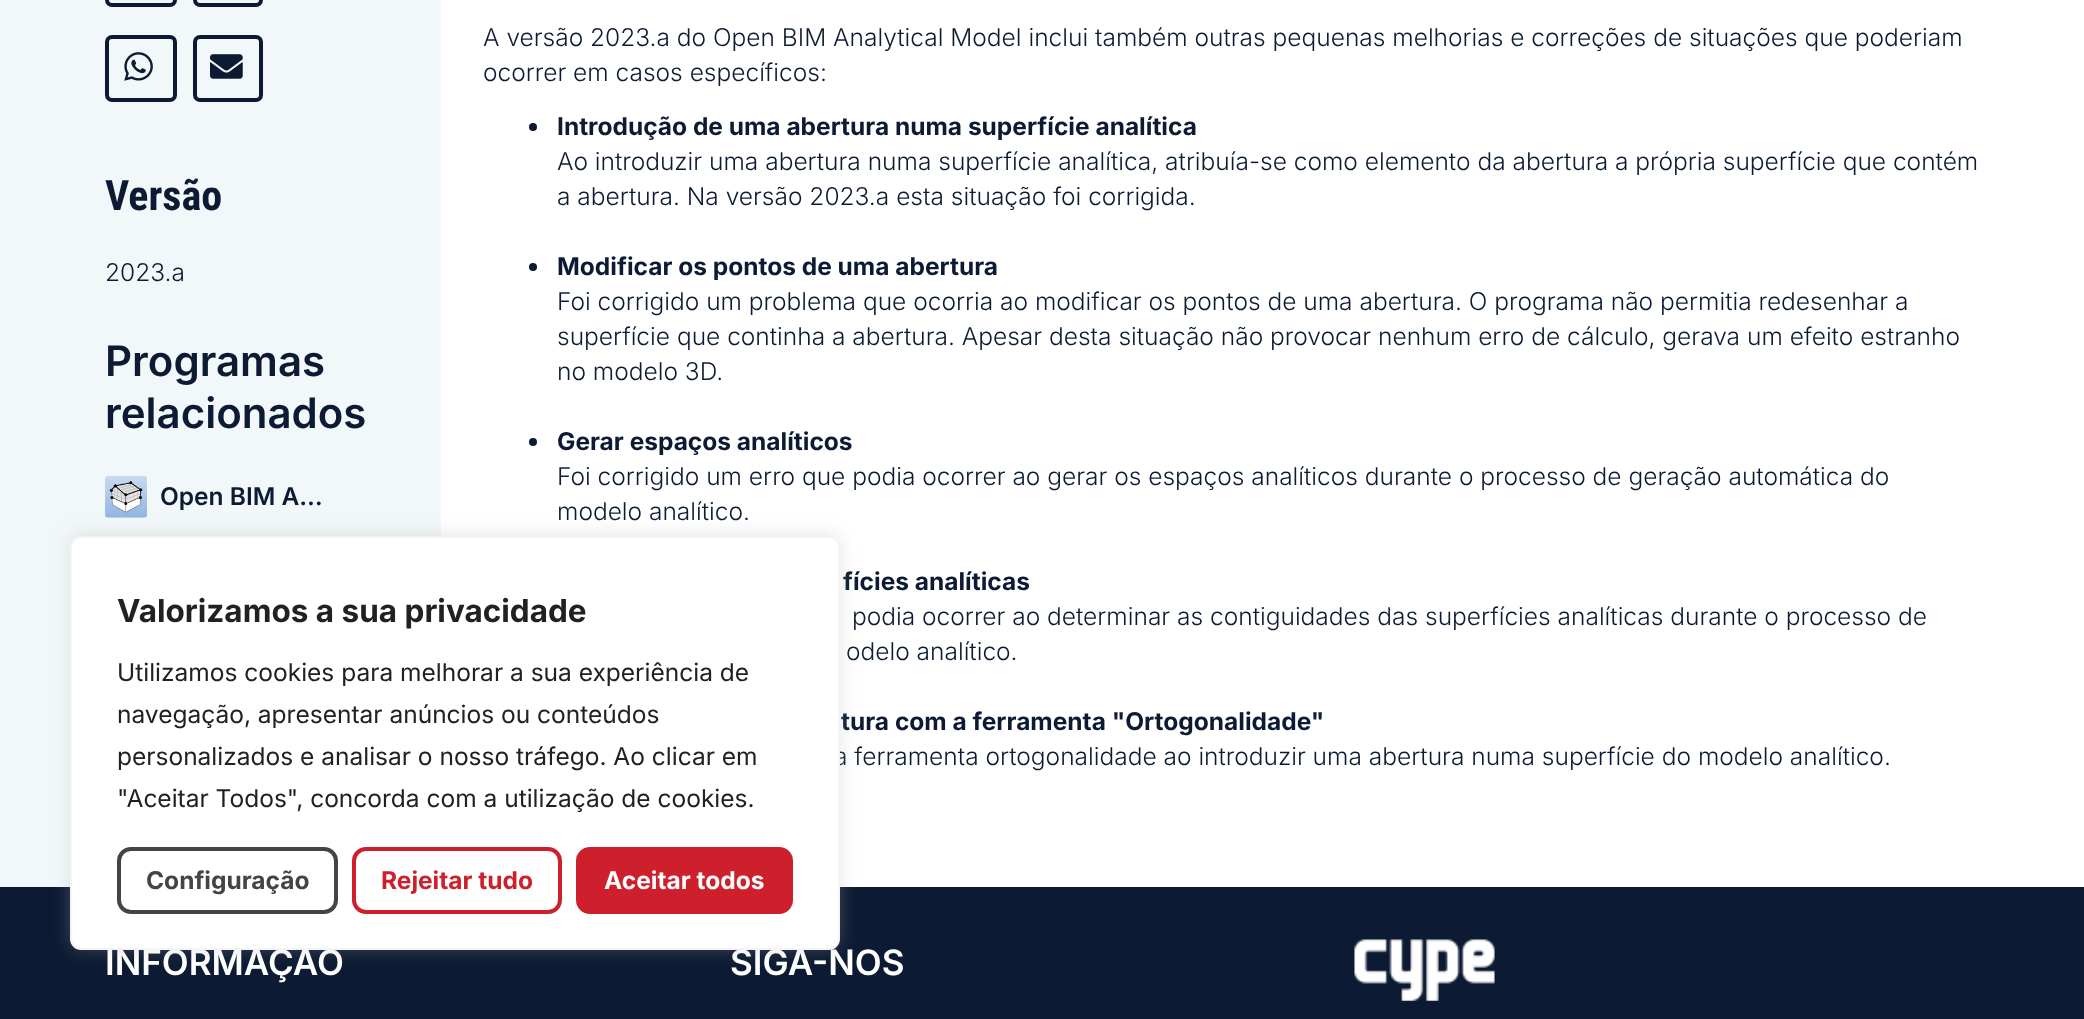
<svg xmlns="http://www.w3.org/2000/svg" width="2084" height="1019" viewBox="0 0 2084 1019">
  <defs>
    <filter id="blur1" x="-50%" y="-200%" width="200%" height="500%"><feGaussianBlur stdDeviation="9"/></filter>
  </defs>
  <rect width="100%" height="100%" fill="#f2f7f9"/>
  <rect x="107" y="-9" width="68" height="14" rx="5" fill="none" stroke="#0c1b33" stroke-width="4"/>
  <rect x="195" y="-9" width="66" height="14" rx="5" fill="none" stroke="#0c1b33" stroke-width="4"/>
  <rect x="107" y="37" width="68" height="63" rx="5" fill="none" stroke="#0c1b33" stroke-width="4"/>
  <image x="124" y="52" width="29" height="29" href="img1.png"/>
  <rect x="195" y="37" width="66" height="63" rx="5" fill="none" stroke="#0c1b33" stroke-width="4"/>
  <image x="210" y="54" width="33" height="25" href="img2.png"/>
  <text x="105" y="210" font-family="Roboto Condensed" font-size="42" font-weight="bold" fill="#0c1b33">Versão</text>
  <text x="105" y="281" font-family="Inter" font-size="24.5" font-weight="300" fill="#0c1b33">2023.a</text>
  <text x="105" y="376" font-family="Inter" font-size="42" font-weight="600" fill="#0c1b33">Programas</text>
  <text x="105" y="428" font-family="Inter" font-size="42" font-weight="600" fill="#0c1b33">relacionados</text>
  <image x="105" y="476" width="42" height="42" href="img3.png"/>
  <text x="160" y="505" font-family="Inter" font-size="24.5" font-weight="600" fill="#0c1b33">Open BIM A…</text>
  <rect x="441" y="0" width="1643" height="887" fill="#ffffff"/>
  <text x="483" y="46" font-family="Inter" font-size="24.5" font-weight="300" fill="#0c1b33">A versão 2023.a do Open BIM Analytical Model inclui também outras pequenas melhorias e correções de situações que poderiam</text>
  <text x="483" y="81" font-family="Inter" font-size="24.5" font-weight="300" fill="#0c1b33">ocorrer em casos específicos:</text>
  <circle cx="533" cy="127" r="4" fill="#0c1b33"/>
  <text x="557" y="135" font-family="Inter" font-size="24.5" font-weight="bold" fill="#0c1b33">Introdução de uma abertura numa superfície analítica</text>
  <text x="557" y="170" font-family="Inter" font-size="24.5" font-weight="300" fill="#0c1b33">Ao introduzir uma abertura numa superfície analítica, atribuía-se como elemento da abertura a própria superfície que contém</text>
  <text x="557" y="205" font-family="Inter" font-size="24.5" font-weight="300" fill="#0c1b33">a abertura. Na versão 2023.a esta situação foi corrigida.</text>
  <circle cx="533" cy="267" r="4" fill="#0c1b33"/>
  <text x="557" y="275" font-family="Inter" font-size="24.5" font-weight="bold" fill="#0c1b33">Modificar os pontos de uma abertura</text>
  <text x="557" y="310" font-family="Inter" font-size="24.5" font-weight="300" fill="#0c1b33">Foi corrigido um problema que ocorria ao modificar os pontos de uma abertura. O programa não permitia redesenhar a</text>
  <text x="557" y="345" font-family="Inter" font-size="24.5" font-weight="300" fill="#0c1b33">superfície que continha a abertura. Apesar desta situação não provocar nenhum erro de cálculo, gerava um efeito estranho</text>
  <text x="557" y="380" font-family="Inter" font-size="24.5" font-weight="300" fill="#0c1b33">no modelo 3D.</text>
  <circle cx="533" cy="442" r="4" fill="#0c1b33"/>
  <text x="557" y="450" font-family="Inter" font-size="24.5" font-weight="bold" fill="#0c1b33">Gerar espaços analíticos</text>
  <text x="557" y="485" font-family="Inter" font-size="24.5" font-weight="300" fill="#0c1b33">Foi corrigido um erro que podia ocorrer ao gerar os espaços analíticos durante o processo de geração automática do</text>
  <text x="557" y="520" font-family="Inter" font-size="24.5" font-weight="300" fill="#0c1b33">modelo analítico.</text>
  <text x="843" y="590" font-family="Inter" font-size="24.5" font-weight="bold" fill="#0c1b33">fícies analíticas</text>
  <text x="852" y="625" font-family="Inter" font-size="24.5" font-weight="300" fill="#0c1b33">podia ocorrer ao determinar as contiguidades das superfícies analíticas durante o processo de</text>
  <text x="846" y="660" font-family="Inter" font-size="24.5" font-weight="300" fill="#0c1b33">odelo analítico.</text>
  <text x="841" y="730" font-family="Inter" font-size="24.5" font-weight="bold" fill="#0c1b33">tura com a ferramenta "Ortogonalidade"</text>
  <text x="834" y="765" font-family="Inter" font-size="24.5" font-weight="300" fill="#0c1b33">a ferramenta ortogonalidade ao introduzir uma abertura numa superfície do modelo analítico.</text>
  <rect x="0" y="887" width="2084" height="132" fill="#0c1b33"/>
  <text x="105" y="975" font-family="Inter" font-size="35" font-weight="600" fill="#ffffff">INFORMAÇÃO</text>
  <text x="730" y="975" font-family="Inter" font-size="35" font-weight="600" fill="#ffffff">SIGA-NOS</text>
  <image x="1354" y="939" width="141" height="62" href="img4.png"/>
  <rect x="70" y="534" width="770" height="415" rx="11" fill="#acabab" fill-opacity="0.3" filter="url(#blur1)"/>
  <rect x="71" y="537" width="768" height="412" rx="10" fill="#ffffff" stroke="#f4f4f4" stroke-width="2"/>
  <text x="117" y="622" font-family="Inter" font-size="31.5" font-weight="bold" fill="#212121">Valorizamos a sua privacidade</text>
  <text x="117" y="681" font-family="Inter" font-size="24.5" fill="#212121">Utilizamos cookies para melhorar a sua experiência de</text>
  <text x="117" y="723" font-family="Inter" font-size="24.5" fill="#212121">navegação, apresentar anúncios ou conteúdos</text>
  <text x="117" y="765" font-family="Inter" font-size="24.5" fill="#212121">personalizados e analisar o nosso tráfego. Ao clicar em</text>
  <text x="117" y="807" font-family="Inter" font-size="24.5" fill="#212121">"Aceitar Todos", concorda com a utilização de cookies.</text>
  <rect x="119" y="849" width="217" height="63" rx="12" fill="none" stroke="#444444" stroke-width="4"/>
  <text x="146" y="889" font-family="Inter" font-size="24.5" font-weight="bold" fill="#444444">Configuração</text>
  <rect x="354" y="849" width="206" height="63" rx="12" fill="none" stroke="#cd202c" stroke-width="4"/>
  <text x="381" y="889" font-family="Inter" font-size="24.5" font-weight="bold" fill="#cd202c">Rejeitar tudo</text>
  <rect x="578" y="849" width="213" height="63" rx="12" fill="#cd202c" stroke="#cd202c" stroke-width="4"/>
  <text x="604" y="889" font-family="Inter" font-size="24.5" font-weight="bold" fill="#ffffff">Aceitar todos</text>
</svg>
